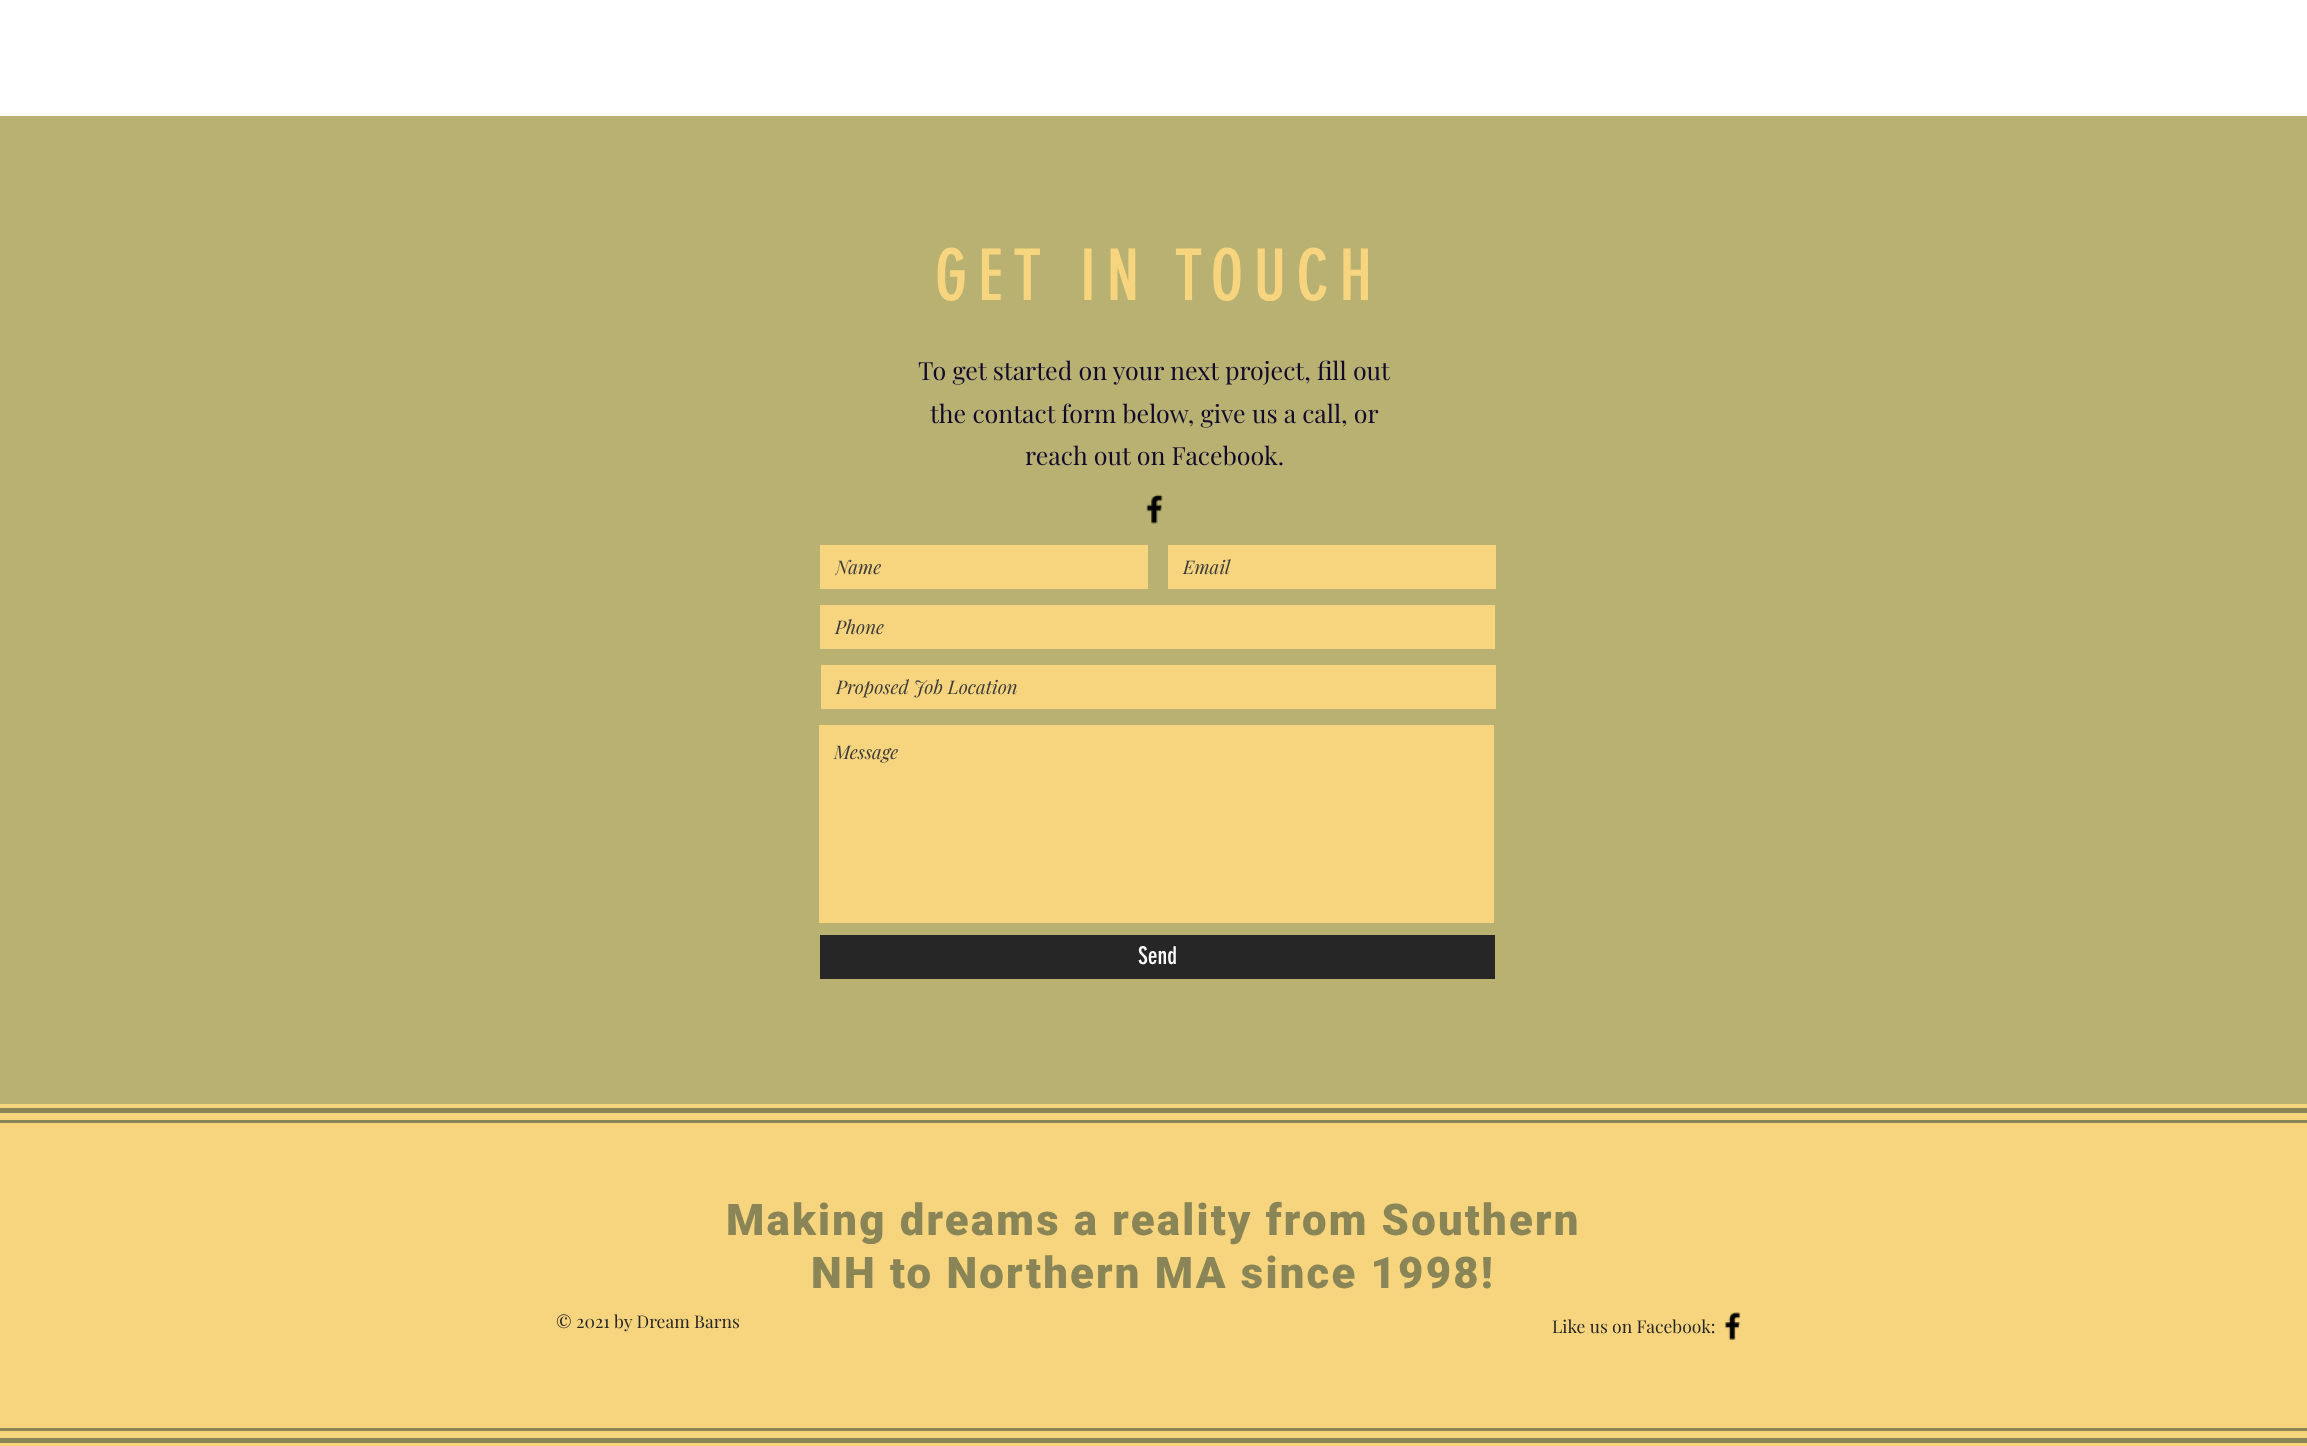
<svg xmlns="http://www.w3.org/2000/svg" width="2307" height="1446" viewBox="0 0 2307 1446">
  <defs>
    <clipPath id="clip1"><rect x="835" y="554" width="309" height="25"/></clipPath>
  </defs>
  <rect width="100%" height="100%" fill="#ffffff"/>
  <rect x="0" y="116" width="2307" height="988" fill="#b8b172"/>
  <text x="935" y="300" font-family="'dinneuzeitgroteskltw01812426'" font-size="70" letter-spacing="10.5" fill="#f7d57f">GET IN TOUCH</text>
  <text x="918" y="380" font-family="Playfair Display" font-size="25" fill="#110a2b">To get started on your next project, fill out</text>
  <text x="930" y="423" font-family="Playfair Display" font-size="25" fill="#110a2b">the contact form below, give us a call, or</text>
  <text x="1025" y="465" font-family="Playfair Display" font-size="25" fill="#110a2b">reach out on Facebook.</text>
  <image x="1146" y="494" width="17" height="30" href="img1.png"/>
  <rect x="820" y="545" width="328" height="44" fill="#f7d57f"/>
  <g clip-path="url(#clip1)">
    <text x="835" y="574" font-family="Playfair Display" font-size="18.75" font-style="italic" fill="#3b3b3b">Name</text>
  </g>
  <rect x="1168" y="545" width="328" height="44" fill="#f7d57f"/>
  <text x="1183" y="574" font-family="Playfair Display" font-size="18.75" font-style="italic" fill="#3b3b3b">Email</text>
  <rect x="820" y="605" width="675" height="44" fill="#f7d57f"/>
  <text x="835" y="634" font-family="Playfair Display" font-size="18.75" font-style="italic" fill="#3b3b3b">Phone</text>
  <rect x="821" y="665" width="675" height="44" fill="#f7d57f"/>
  <text x="836" y="694" font-family="Playfair Display" font-size="18.75" font-style="italic" fill="#3b3b3b">Proposed Job Location</text>
  <rect x="819" y="725" width="675" height="198" fill="#f7d57f"/>
  <text x="834" y="759" font-family="Playfair Display" font-size="18.75" font-style="italic" fill="#3b3b3b">Message</text>
  <rect x="820" y="935" width="675" height="44" fill="#262626"/>
  <text x="1138" y="964" font-family="'dinneuzeitgroteskltw01812426'" font-size="24" fill="#fcfcfc">Send</text>
  <rect x="0" y="1104" width="2307" height="342" fill="#f7d57f"/>
  <rect x="0" y="1108" width="2307" height="5" fill="#8a8556"/>
  <rect x="0" y="1438" width="2307" height="5" fill="#8a8556"/>
  <rect x="0" y="1120" width="2307" height="3" fill="#8a8556"/>
  <rect x="0" y="1428" width="2307" height="3" fill="#8a8556"/>
  <text x="726" y="1235" font-family="Roboto" font-size="43.75" font-weight="900" letter-spacing="2.2" fill="#8a8556">Making dreams a reality from Southern</text>
  <text x="811" y="1288" font-family="Roboto" font-size="43.75" font-weight="900" letter-spacing="2.2" fill="#8a8556">NH to Northern MA since 1998!</text>
  <text x="556" y="1328" font-family="Playfair Display" font-size="17.5" fill="#262626">© 2021 by Dream Barns</text>
  <text x="1552" y="1333" font-family="Playfair Display" font-size="17.5" fill="#262626">Like us on Facebook:</text>
  <image x="1724" y="1312" width="17" height="28" href="img2.png"/>
</svg>
